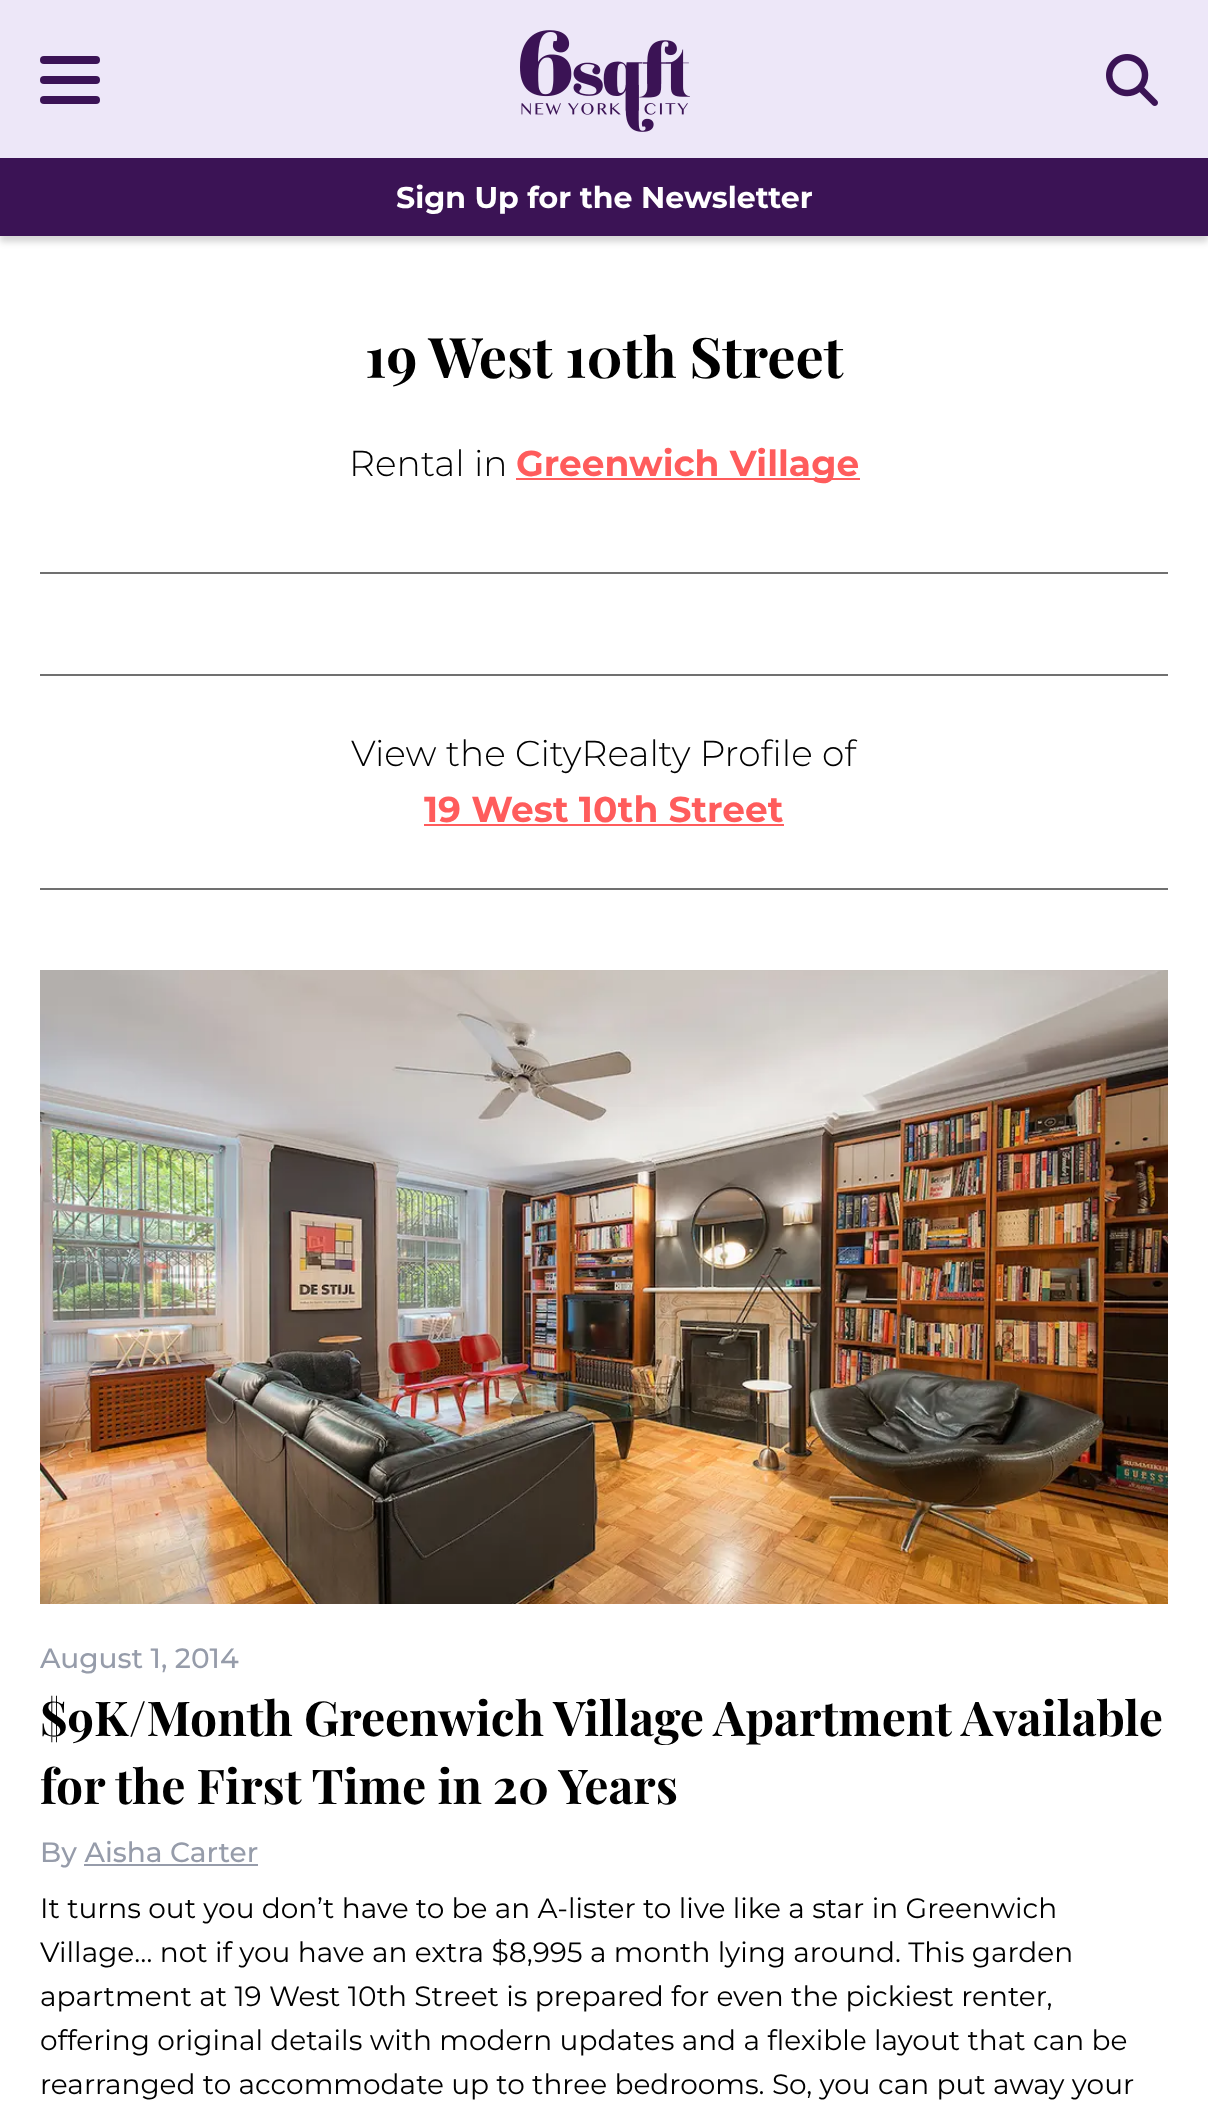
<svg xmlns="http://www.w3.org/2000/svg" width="1208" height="2127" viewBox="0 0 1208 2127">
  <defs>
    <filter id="blur1" x="-50%" y="-200%" width="200%" height="500%"><feGaussianBlur stdDeviation="3"/></filter>
  </defs>
  <rect width="100%" height="100%" fill="#ffffff"/>
  <rect x="0" y="6" width="1208" height="236" fill="#000000" fill-opacity="0.16" filter="url(#blur1)"/>
  <rect x="0" y="0" width="1208" height="158" fill="#ede7f8"/>
  <rect x="40" y="56" width="60" height="8" rx="4" fill="#3b1355"/>
  <rect x="40" y="76" width="60" height="8" rx="4" fill="#3b1355"/>
  <rect x="40" y="96" width="60" height="8" rx="4" fill="#3b1355"/>
  <image x="520" y="30" width="170" height="102" href="img1.png"/>
  <image x="1106" y="54" width="52" height="52" href="img2.png"/>
  <rect x="0" y="158" width="1208" height="78" fill="#3b1355"/>
  <text x="396" y="208" font-family="Montserrat" font-size="30" font-weight="bold" fill="#ffffff">Sign Up for the Newsletter</text>
  <text x="365" y="378" font-family="Playfair Display" font-size="56" font-weight="bold" fill="#000000">19 West 10th Street</text>
  <text x="349" y="476" font-family="Montserrat" font-size="36" font-weight="300" fill="#000000">Rental in</text>
  <rect x="516" y="478" width="344" height="2" fill="#ff5c5c"/>
  <text x="516" y="476" font-family="Montserrat" font-size="36" font-weight="bold" fill="#ff5c5c">Greenwich Village</text>
  <rect x="40" y="572" width="1128" height="2" fill="#707070"/>
  <rect x="40" y="888" width="1128" height="2" fill="#707070"/>
  <rect x="40" y="674" width="1128" height="2" fill="#707070"/>
  <text x="351" y="766" font-family="Montserrat" font-size="36" font-weight="300" fill="#000000">View the CityRealty Profile of</text>
  <text x="424" y="822" font-family="Montserrat" font-size="36" font-weight="bold" fill="#ff5c5c">19 West 10th Street</text>
  <rect x="424" y="824" width="360" height="2" fill="#ff5c5c"/>
  <image x="40" y="970" width="1128" height="634" href="img3.png"/>
  <text x="40" y="1668" font-family="Montserrat" font-size="28" font-weight="500" fill="#969caa">August 1, 2014</text>
  <text x="40" y="1736" font-family="Playfair Display" font-size="48" font-weight="bold" fill="#000000">$9K/Month Greenwich Village Apartment Available</text>
  <text x="40" y="1804" font-family="Playfair Display" font-size="48" font-weight="bold" fill="#000000">for the First Time in 20 Years</text>
  <text x="40" y="1862" font-family="Montserrat" font-size="28" font-weight="500" fill="#969caa">By Aisha Carter</text>
  <rect x="84" y="1864" width="174" height="2" fill="#969caa"/>
  <text x="40" y="1918" font-family="Montserrat" font-size="28" fill="#000000">It turns out you don’t have to be an A-lister to live like a star in Greenwich</text>
  <text x="40" y="1962" font-family="Montserrat" font-size="28" fill="#000000">Village… not if you have an extra $8,995 a month lying around. This garden</text>
  <text x="40" y="2006" font-family="Montserrat" font-size="28" fill="#000000">apartment at 19 West 10th Street is prepared for even the pickiest renter,</text>
  <text x="40" y="2050" font-family="Montserrat" font-size="28" fill="#000000">offering original details with modern updates and a flexible layout that can be</text>
  <text x="40" y="2094" font-family="Montserrat" font-size="28" fill="#000000">rearranged to accommodate up to three bedrooms. So, you can put away your</text>
</svg>
